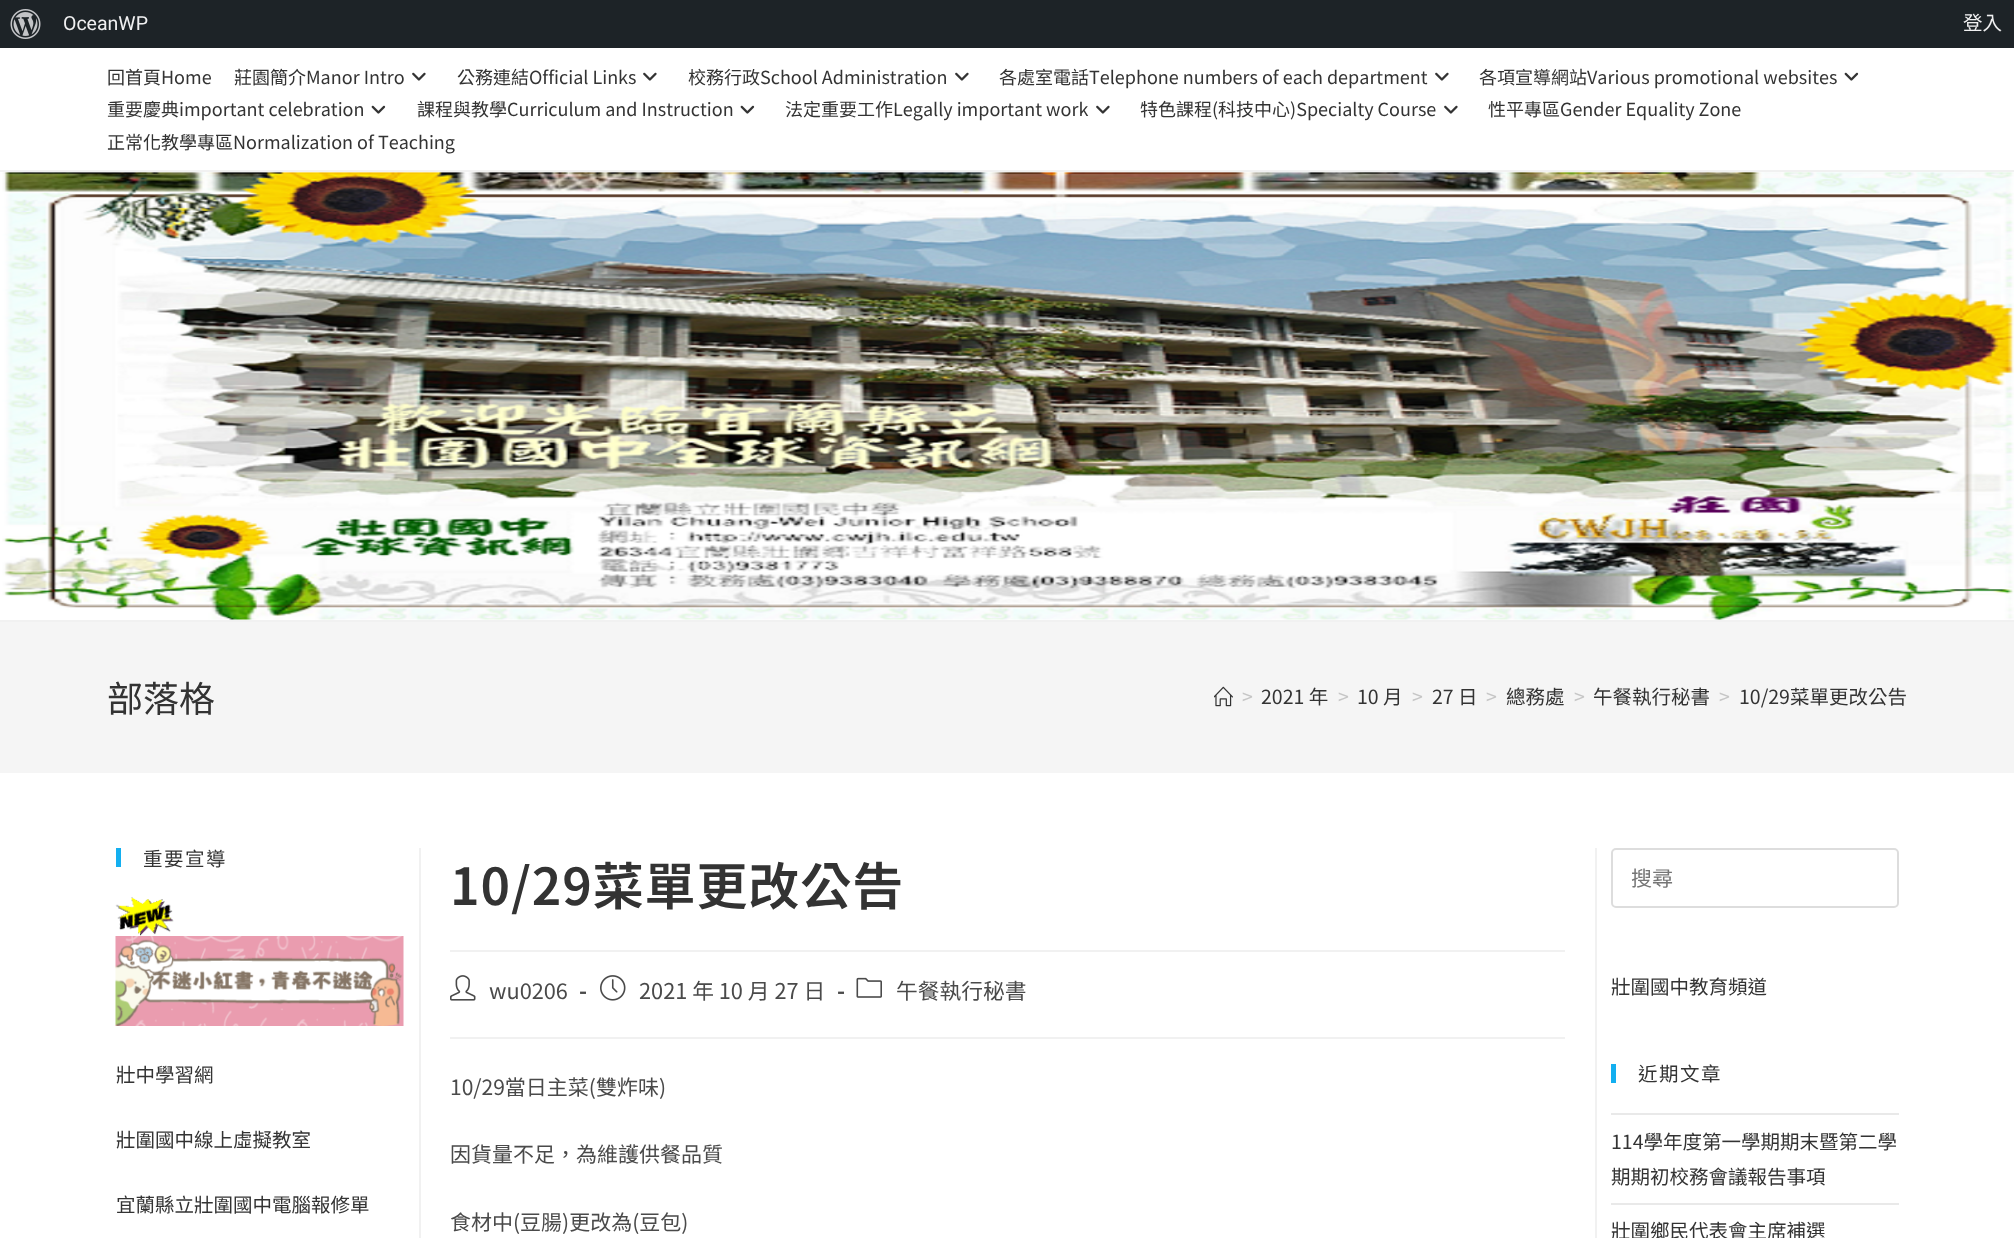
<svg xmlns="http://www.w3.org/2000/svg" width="2014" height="1238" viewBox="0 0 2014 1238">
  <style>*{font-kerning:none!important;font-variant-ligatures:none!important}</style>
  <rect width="100%" height="100%" fill="#ffffff"/>
  <rect x="0" y="0" width="2014" height="48" fill="#1d2327"/>
  <image x="10" y="9" width="31" height="30" href="img1.png"/>
  <text x="63" y="30" font-family="Roboto" font-size="19.5" fill="#f0f0f1">OceanWP</text>
  <text x="1963" y="30" font-family="Noto Sans CJK TC" font-size="19.5" fill="#f0f0f1">登入</text>
  <rect x="0" y="170" width="2014" height="2" fill="#f1f1f1"/>
  <text x="107" y="84" font-family="Noto Sans TC" font-size="18" fill="#333333">回首頁Home</text>
  <text x="234" y="84" font-family="Noto Sans TC" font-size="18" fill="#333333">莊園簡介Manor Intro</text>
  <image x="412" y="72" width="14" height="9" href="img2.png"/>
  <text x="457" y="84" font-family="Noto Sans TC" font-size="18" fill="#333333">公務連結Official Links</text>
  <image x="643" y="72" width="14" height="9" href="img2.png"/>
  <text x="688" y="84" font-family="Noto Sans TC" font-size="18" fill="#333333">校務行政School Administration</text>
  <image x="955" y="72" width="14" height="9" href="img2.png"/>
  <text x="999" y="84" font-family="Noto Sans TC" font-size="18" fill="#333333">各處室電話Telephone numbers of each department</text>
  <image x="1435" y="72" width="14" height="9" href="img2.png"/>
  <text x="1479" y="84" font-family="Noto Sans TC" font-size="18" fill="#333333">各項宣導網站Various promotional websites</text>
  <image x="1844" y="72" width="15" height="9" href="img3.png"/>
  <text x="107" y="116" font-family="Noto Sans TC" font-size="18" fill="#333333">重要慶典important celebration</text>
  <image x="371" y="105" width="15" height="9" href="img3.png"/>
  <text x="417" y="116" font-family="Noto Sans TC" font-size="18" fill="#333333">課程與教學Curriculum and Instruction</text>
  <image x="740" y="105" width="15" height="9" href="img3.png"/>
  <text x="785" y="116" font-family="Noto Sans TC" font-size="18" fill="#333333">法定重要工作Legally important work</text>
  <image x="1096" y="105" width="14" height="9" href="img2.png"/>
  <text x="1140" y="116" font-family="Noto Sans TC" font-size="18" fill="#333333">特色課程(科技中心)Specialty Course</text>
  <image x="1444" y="105" width="14" height="9" href="img2.png"/>
  <text x="1488" y="116" font-family="Noto Sans TC" font-size="18" fill="#333333">性平專區Gender Equality Zone</text>
  <text x="107" y="149" font-family="Noto Sans TC" font-size="18" fill="#333333">正常化教學專區Normalization of Teaching</text>
  <image x="2" y="172" width="2012" height="448" href="img4.png"/>
  <rect x="0" y="620" width="2014" height="2" fill="#f1f1f1"/>
  <rect x="0" y="622" width="2014" height="151" fill="#f5f5f5"/>
  <text x="107" y="712" font-family="Noto Sans TC" font-size="36" fill="#333333">部落格</text>
  <image x="1214" y="686" width="19" height="21" href="img5.png"/>
  <text x="1242" y="704" font-family="Noto Sans TC" font-size="19.5" fill="#c6c6c6">&gt;</text>
  <text x="1261" y="704" font-family="Noto Sans TC" font-size="19.5" fill="#333333">2021 年</text>
  <text x="1338" y="704" font-family="Noto Sans TC" font-size="19.5" fill="#c6c6c6">&gt;</text>
  <text x="1357" y="704" font-family="Noto Sans TC" font-size="19.5" fill="#333333">10 月</text>
  <text x="1412" y="704" font-family="Noto Sans TC" font-size="19.5" fill="#c6c6c6">&gt;</text>
  <text x="1432" y="704" font-family="Noto Sans TC" font-size="19.5" fill="#333333">27 日</text>
  <text x="1486" y="704" font-family="Noto Sans TC" font-size="19.5" fill="#c6c6c6">&gt;</text>
  <text x="1506" y="704" font-family="Noto Sans TC" font-size="19.5" fill="#333333">總務處</text>
  <text x="1574" y="704" font-family="Noto Sans TC" font-size="19.5" fill="#c6c6c6">&gt;</text>
  <text x="1593" y="704" font-family="Noto Sans TC" font-size="19.5" fill="#333333">午餐執行秘書</text>
  <text x="1719" y="704" font-family="Noto Sans TC" font-size="19.5" fill="#c6c6c6">&gt;</text>
  <text x="1739" y="704" font-family="Noto Sans TC" font-size="19.5" fill="#333333">10/29菜單更改公告</text>
  <rect x="116" y="848" width="5" height="19" fill="#13aff0"/>
  <text x="143" y="866" font-family="Noto Sans TC" font-size="19.5" letter-spacing="1.5" fill="#333333">重要宣導</text>
  <image x="115" y="897" width="59" height="39" href="img6.png"/>
  <image x="115" y="936" width="289" height="90" href="img7.png"/>
  <text x="116" y="1082" font-family="Noto Sans TC" font-size="19.5" fill="#333333">壯中學習網</text>
  <text x="116" y="1147" font-family="Noto Sans TC" font-size="19.5" fill="#333333">壯圍國中線上虛擬教室</text>
  <text x="116" y="1212" font-family="Noto Sans TC" font-size="19.5" fill="#333333">宜蘭縣立壯圍國中電腦報修單</text>
  <rect x="1595" y="848" width="2" height="390" fill="#f1f1f1"/>
  <rect x="419" y="848" width="2" height="390" fill="#f1f1f1"/>
  <rect x="450" y="950" width="1115" height="2" fill="#f1f1f1"/>
  <text x="450" y="905" font-family="Noto Sans TC" font-size="51" font-weight="600" letter-spacing="0.9" fill="#333333">10/29菜單更改公告</text>
  <rect x="450" y="1037" width="1115" height="2" fill="#f1f1f1"/>
  <image x="450" y="975" width="26" height="26" href="img8.png"/>
  <text x="489" y="999" font-family="Noto Sans TC" font-size="21.75" fill="#4a4a4a">wu0206</text>
  <text x="579" y="999" font-family="Noto Sans TC" font-size="21.75" font-weight="bold" fill="#4a4a4a">-</text>
  <image x="600" y="975" width="26" height="26" href="img9.png"/>
  <text x="639" y="999" font-family="Noto Sans TC" font-size="21.75" fill="#4a4a4a">2021 年 10 月 27 日</text>
  <text x="837" y="999" font-family="Noto Sans TC" font-size="21.75" font-weight="bold" fill="#4a4a4a">-</text>
  <image x="856" y="977" width="26" height="21" href="img10.png"/>
  <text x="896" y="999" font-family="Noto Sans TC" font-size="21.75" fill="#4a4a4a">午餐執行秘書</text>
  <text x="450" y="1095" font-family="Noto Sans TC" font-size="21" fill="#4a4a4a">10/29當日主菜(雙炸味)</text>
  <text x="450" y="1162" font-family="Noto Sans TC" font-size="21" fill="#4a4a4a">因貨量不足，為維護供餐品質</text>
  <text x="450" y="1230" font-family="Noto Sans TC" font-size="21" fill="#4a4a4a">食材中(豆腸)更改為(豆包)</text>
  <rect x="1612" y="849" width="286" height="58" rx="4" fill="none" stroke="#dddddd" stroke-width="2"/>
  <text x="1631" y="886" font-family="Noto Sans TC" font-size="21" fill="#757575">搜尋</text>
  <text x="1611" y="994" font-family="Noto Sans TC" font-size="19.5" fill="#333333">壯圍國中教育頻道</text>
  <rect x="1611" y="1064" width="5" height="19" fill="#13aff0"/>
  <text x="1638" y="1081" font-family="Noto Sans TC" font-size="19.5" letter-spacing="1.5" fill="#333333">近期文章</text>
  <rect x="1611" y="1113" width="288" height="2" fill="#e9e9e9"/>
  <rect x="1611" y="1203" width="288" height="2" fill="#e9e9e9"/>
  <text x="1611" y="1149" font-family="Noto Sans TC" font-size="19.5" fill="#333333">114學年度第一學期期末暨第二學</text>
  <text x="1611" y="1184" font-family="Noto Sans TC" font-size="19.5" fill="#333333">期期初校務會議報告事項</text>
  <text x="1611" y="1238" font-family="Noto Sans TC" font-size="19.5" fill="#333333">壯圍鄉民代表會主席補選</text>
</svg>
